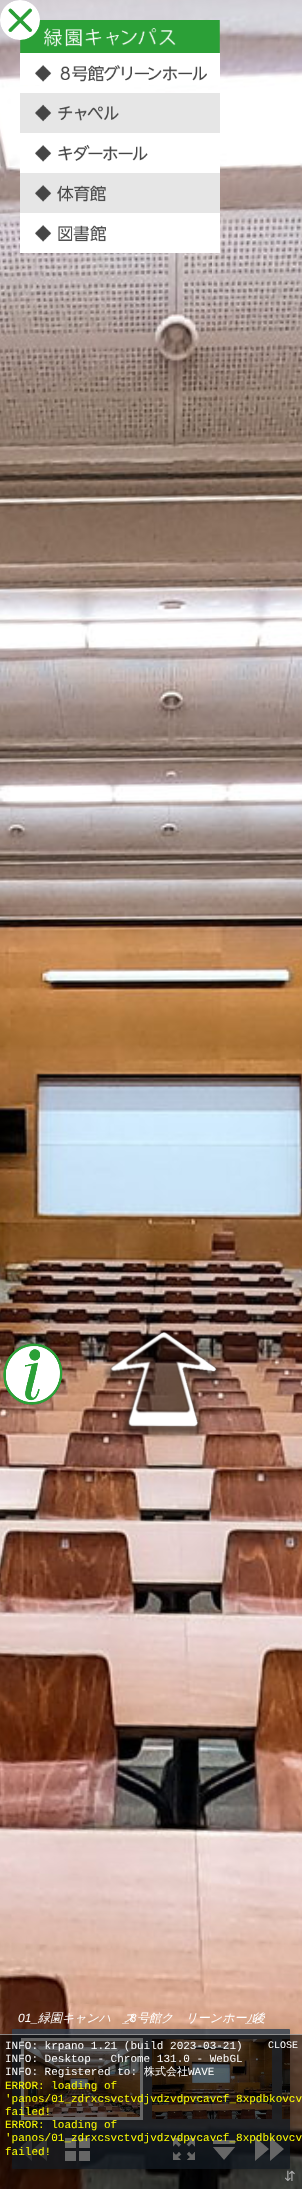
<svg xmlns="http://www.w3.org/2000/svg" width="302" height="2189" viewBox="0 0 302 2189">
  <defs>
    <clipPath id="clip1"><rect x="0" y="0" width="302" height="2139"/></clipPath>
    <clipPath id="clip2"><path d="M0 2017H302V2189H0ZM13 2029H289C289.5 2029 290 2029.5 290 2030V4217C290 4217.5 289.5 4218 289 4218H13C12.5 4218 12 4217.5 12 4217V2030C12 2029.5 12.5 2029 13 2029Z" clip-rule="evenodd"/></clipPath>
    <filter id="blur1" x="-50%" y="-200%" width="200%" height="500%"><feGaussianBlur stdDeviation="5"/></filter>
    <clipPath id="clip3"><rect x="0" y="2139" width="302" height="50"/></clipPath>
    <clipPath id="clip4"><path d="M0 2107H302V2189H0ZM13 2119H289C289.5 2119 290 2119.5 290 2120V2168C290 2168.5 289.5 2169 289 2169H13C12.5 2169 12 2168.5 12 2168V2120C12 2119.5 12.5 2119 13 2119Z" clip-rule="evenodd"/></clipPath>
  </defs>
  <rect width="100%" height="100%" fill="#ffffff"/>
  <image x="0" y="0" width="302" height="2189" href="img1.png"/>
  <image x="20" y="20" width="200" height="33" href="img3.png"/>
  <image x="0" y="0" width="40" height="40" href="img2.png"/>
  <image x="20" y="53" width="200" height="32" href="img4.png"/>
  <image x="20" y="93" width="200" height="40" href="img5.png"/>
  <image x="20" y="144" width="200" height="29" href="img6.png"/>
  <image x="20" y="173" width="200" height="40" href="img7.png"/>
  <image x="20" y="213" width="200" height="40" href="img8.png"/>
  <g clip-path="url(#clip1)">
    <g clip-path="url(#clip2)">
      <rect x="12" y="2033" width="278" height="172" rx="1" fill="#000000" fill-opacity="0.3" filter="url(#blur1)"/>
    </g>
  </g>
  <path d="M13 2029H289C289.5 2029 290 2029.5 290 2030V2139H12V2030C12 2029.5 12.5 2029 13 2029Z" fill="#2d3e50" fill-opacity="0.8"/>
  <text x="18" y="2022" font-family="Liberation Sans" font-size="12" font-style="italic" fill="#ffffff">01_</text>
  <text x="38" y="2022" font-family="WenQuanYi Zen Hei" font-size="12" font-weight="500" font-style="italic" fill="#ffffff">緑園キャンパス</text>
  <text x="123" y="2022" font-family="Liberation Sans" font-size="12" font-style="italic" fill="#ffffff">_8</text>
  <text x="137" y="2022" font-family="WenQuanYi Zen Hei" font-size="12" font-weight="500" font-style="italic" fill="#ffffff">号館グリーンホール</text>
  <text x="246" y="2022" font-family="Liberation Sans" font-size="12" font-style="italic" fill="#ffffff">_</text>
  <text x="253" y="2022" font-family="WenQuanYi Zen Hei" font-size="12" font-weight="500" font-style="italic" fill="#ffffff">後</text>
  <image x="24" y="2041" width="116" height="76" href="img9.png"/>
  <rect x="22.5" y="2039.5" width="119" height="79" fill="none" stroke="#ffffff" stroke-width="3"/>
  <image x="152" y="2039" width="120" height="80" href="img10.png"/>
  <image x="282" y="2039" width="8" height="80" href="img11.png"/>
  <g clip-path="url(#clip3)">
    <g clip-path="url(#clip4)">
      <rect x="12" y="2123" width="278" height="50" rx="1" fill="#000000" fill-opacity="0.3" filter="url(#blur1)"/>
    </g>
  </g>
  <path d="M12 2139H290V2168C290 2168.5 289.5 2169 289 2169H13C12.5 2169 12 2168.5 12 2168Z" fill="#2d3e50" fill-opacity="0.8"/>
  <image x="18" y="2137" width="29" height="24" href="img12.png"/>
  <image x="65" y="2138" width="25" height="23" href="img13.png"/>
  <image x="173" y="2138" width="22" height="22" href="img14.png"/>
  <image x="213" y="2140" width="22" height="20" href="img15.png"/>
  <image x="255" y="2137" width="29" height="24" href="img16.png"/>
  <rect x="0" y="2034" width="302" height="155" fill="#000000" fill-opacity="0.6"/>
  <rect x="0" y="2034" width="302" height="1" fill="#ffffff" fill-opacity="0.48"/>
  <text x="5" y="2049" font-family="Liberation Mono" font-size="11" fill="#ffffff">INFO: krpano 1.21 (build 2023-03-21)</text>
  <text x="5" y="2062" font-family="Liberation Mono" font-size="11" fill="#ffffff">INFO: Desktop - Chrome 131.0 - WebGL</text>
  <text x="5" y="2075" font-family="Liberation Mono" font-size="11" fill="#ffffff">INFO: Registered to:</text>
  <text x="144" y="2075" font-family="WenQuanYi Zen Hei" font-size="11" font-weight="500" fill="#ffffff">株式会社</text>
  <text x="188" y="2075" font-family="Liberation Mono" font-size="11" fill="#ffffff">WAVE</text>
  <text x="5" y="2089" font-family="Liberation Mono" font-size="11" fill="#ffff00">ERROR: loading of</text>
  <text x="5" y="2102" font-family="Liberation Mono" font-size="11" fill="#ffff00">'panos/01_zdrxcsvctvdjvdzvdpvcavcf_8xpdbkovcv</text>
  <text x="5" y="2115" font-family="Liberation Mono" font-size="11" fill="#ffff00">failed!</text>
  <text x="5" y="2128" font-family="Liberation Mono" font-size="11" fill="#ffff00">ERROR: loading of</text>
  <text x="5" y="2141" font-family="Liberation Mono" font-size="11" fill="#ffff00">'panos/01_zdrxcsvctvdjvdzvdpvcavcf_8xpdbkovcv</text>
  <text x="5" y="2155" font-family="Liberation Mono" font-size="11" fill="#ffff00">failed!</text>
  <text x="268" y="2048" font-family="Liberation Mono" font-size="10" fill="#ffffff">CLOSE</text>
  <text x="284" y="2181" font-family="DejaVu Sans" font-size="14" fill="#aaaaaa">⇵</text>
</svg>
